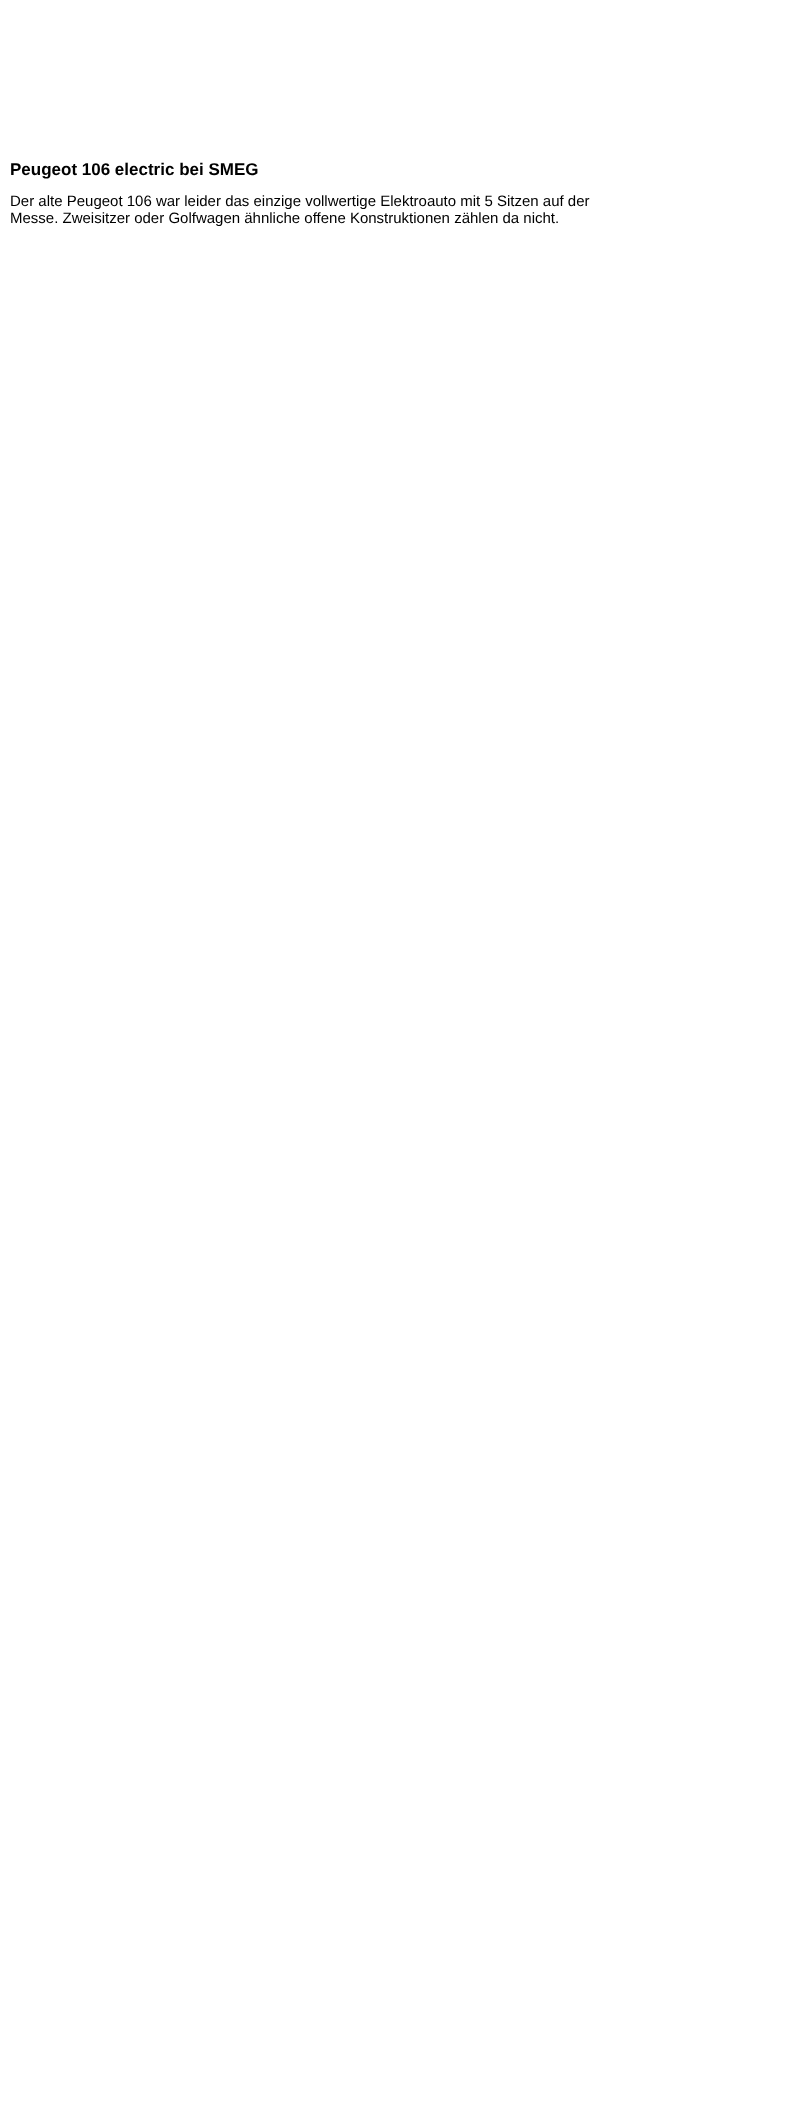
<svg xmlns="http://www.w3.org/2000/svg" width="792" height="2118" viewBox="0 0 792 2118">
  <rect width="100%" height="100%" fill="#ffffff"/>
  <text x="10" y="175" font-family="Liberation Sans" font-size="17" font-weight="bold" fill="#000000">Peugeot 106 electric bei SMEG</text>
  <text x="10" y="206" font-family="Liberation Sans" font-size="15" fill="#000000">Der alte Peugeot 106 war leider das einzige vollwertige Elektroauto mit 5 Sitzen auf der</text>
  <text x="10" y="223" font-family="Liberation Sans" font-size="15" fill="#000000">Messe. Zweisitzer oder Golfwagen ähnliche offene Konstruktionen zählen da nicht.</text>
</svg>
